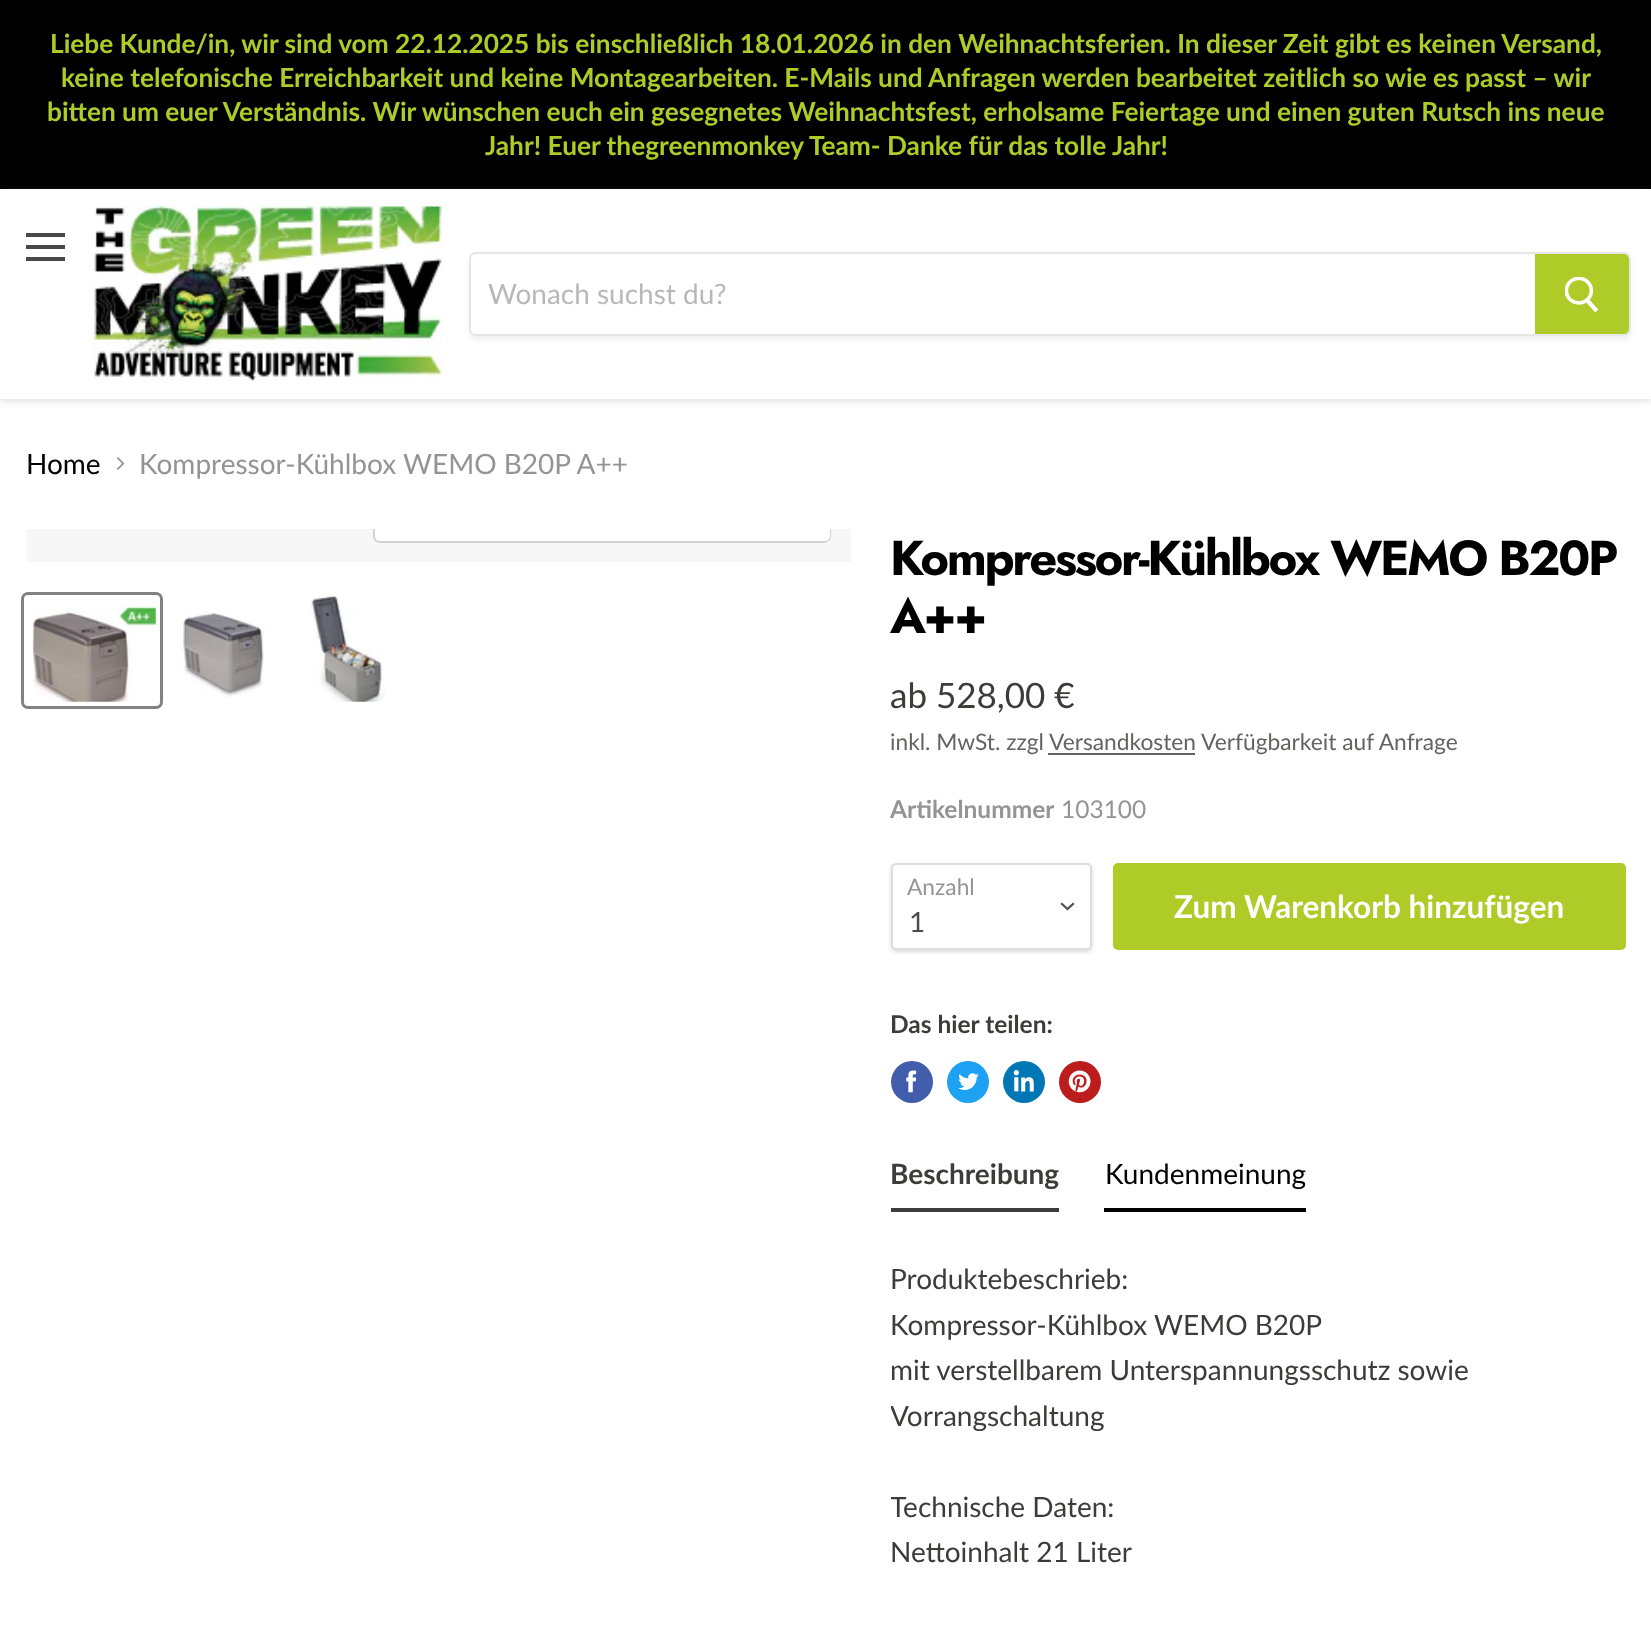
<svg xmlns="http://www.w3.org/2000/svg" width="1651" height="1642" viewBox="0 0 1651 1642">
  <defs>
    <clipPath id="clip1"><path d="M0 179H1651V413H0ZM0 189H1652V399H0Z" clip-rule="evenodd"/></clipPath>
    <filter id="blur1" x="-50%" y="-200%" width="200%" height="500%"><feGaussianBlur stdDeviation="3.5"/></filter>
    <clipPath id="clip2"><path d="M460 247H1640V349H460ZM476 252H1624C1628 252 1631 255 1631 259V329C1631 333 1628 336 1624 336H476C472 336 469 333 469 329V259C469 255 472 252 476 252Z" clip-rule="evenodd"/></clipPath>
    <filter id="blur2" x="-50%" y="-200%" width="200%" height="500%"><feGaussianBlur stdDeviation="2.5"/></filter>
    <clipPath id="clip3"><rect x="26" y="529" width="825" height="33"/></clipPath>
    <filter id="blur3" x="-50%" y="-200%" width="200%" height="500%"><feGaussianBlur stdDeviation="2"/></filter>
    <clipPath id="clip4"><rect x="891" y="1236" width="735" height="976"/></clipPath>
  </defs>
  <rect width="100%" height="100%" fill="#ffffff"/>
  <rect x="0" y="0" width="1651" height="189" fill="#000000"/>
  <text x="50" y="53" font-family="Lato" font-size="26.25" font-weight="bold" fill="#afcb27">Liebe Kunde/in, wir sind vom 22.12.2025 bis einschließlich 18.01.2026 in den Weihnachtsferien. In dieser Zeit gibt es keinen Versand,</text>
  <text x="61" y="87" font-family="Lato" font-size="26.25" font-weight="bold" fill="#afcb27">keine telefonische Erreichbarkeit und keine Montagearbeiten. E-Mails und Anfragen werden bearbeitet zeitlich so wie es passt – wir</text>
  <text x="47" y="121" font-family="Lato" font-size="26.25" font-weight="bold" fill="#afcb27">bitten um euer Verständnis. Wir wünschen euch ein gesegnetes Weihnachtsfest, erholsame Feiertage und einen guten Rutsch ins neue</text>
  <text x="485" y="155" font-family="Lato" font-size="26.25" font-weight="bold" fill="#afcb27">Jahr! Euer thegreenmonkey Team- Danke für das tolle Jahr!</text>
  <g clip-path="url(#clip1)">
    <rect x="0" y="191" width="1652" height="210" fill="#808080" fill-opacity="0.25" filter="url(#blur1)"/>
  </g>
  <rect x="26" y="233" width="39" height="4" fill="#484848"/>
  <rect x="26" y="245" width="39" height="4" fill="#484848"/>
  <rect x="26" y="257" width="39" height="4" fill="#484848"/>
  <image x="92" y="206" width="351" height="175" href="img1.png"/>
  <g clip-path="url(#clip2)">
    <rect x="469" y="256" width="1162" height="84" rx="7" fill="#808080" fill-opacity="0.11" filter="url(#blur2)"/>
  </g>
  <rect x="470" y="253" width="1160" height="82" rx="6" fill="none" stroke="#808080" stroke-opacity="0.2" stroke-width="2"/>
  <path d="M476 254H1535V334H476C473 334 471 332 471 329V259C471 256 473 254 476 254Z" fill="#ffffff"/>
  <text x="488" y="304" font-family="Lato" font-size="28" fill="#b8b8b8">Wonach suchst du?</text>
  <path d="M1536 255H1624C1626 255 1628 257 1628 259V329C1628 331 1626 333 1624 333H1536Z" fill="#afcb27" stroke="#afcb27" stroke-width="2"/>
  <image x="1565" y="277" width="34" height="36" href="img2.png"/>
  <text x="26" y="474" font-family="Lato" font-size="28" fill="#000000">Home</text>
  <image x="116" y="457" width="9" height="13" href="img3.png"/>
  <text x="139" y="474" font-family="Lato" font-size="28" fill="#949494">Kompressor-Kühlbox WEMO B20P A++</text>
  <rect x="26" y="529" width="825" height="33" fill="#f7f7f7"/>
  <g clip-path="url(#clip3)">
    <rect x="374" y="491" width="456" height="51" rx="6" fill="none" stroke="#d2d2d2" stroke-width="2"/>
  </g>
  <path d="M375 529H830V536C830 539 828 541 825 541H380C377 541 375 539 375 536Z" fill="#ffffff" fill-opacity="0.9"/>
  <rect x="22.5" y="593.5" width="139" height="114" rx="5.5" fill="none" stroke="#818181" stroke-width="3"/>
  <image x="31" y="606" width="125" height="96" href="img4.png"/>
  <image x="179" y="613" width="85" height="85" href="img5.png"/>
  <image x="309" y="596" width="76" height="106" href="img6.png"/>
  <text x="890" y="575" font-family="Jost" font-size="49" font-weight="bold" letter-spacing="-2.45" fill="#000000">Kompressor-Kühlbox WEMO B20P</text>
  <text x="890" y="633" font-family="Jost" font-size="49" font-weight="bold" letter-spacing="-2.45" fill="#000000">A++</text>
  <text x="890" y="708" font-family="Lato" font-size="35" fill="#3e3b3b">ab 528,00 €</text>
  <text x="890" y="750" font-family="Lato" font-size="22.75" fill="#656262">inkl. MwSt. zzgl</text>
  <text x="1049" y="750" font-family="Lato" font-size="22.75" fill="#656262">Versandkosten</text>
  <rect x="1048" y="753" width="147" height="2" fill="#656262"/>
  <text x="1201" y="750" font-family="Lato" font-size="22.75" fill="#656262">Verfügbarkeit auf Anfrage</text>
  <text x="890" y="818" font-family="Lato" font-size="24.5" font-weight="bold" fill="#949494">Artikelnummer</text>
  <text x="1061" y="818" font-family="Lato" font-size="24.5" fill="#949494">103100</text>
  <rect x="891" y="865" width="201" height="87" rx="5" fill="#000000" fill-opacity="0.15" filter="url(#blur3)"/>
  <rect x="892" y="864" width="199" height="85" rx="4" fill="#ffffff" stroke="#dddddd" stroke-width="2"/>
  <text x="907" y="895" font-family="Lato" font-size="22.75" fill="#949494">Anzahl</text>
  <path d="M1067.5 909L1073 904M1067.5 909L1062 904" fill="none" stroke="#4d4d4d" stroke-width="2.2" stroke-linecap="square"/>
  <text x="909" y="932" font-family="Lato" font-size="28" fill="#4d4d4d">1</text>
  <rect x="1114" y="864" width="511" height="85" rx="4" fill="#afcb27" stroke="#afcb27" stroke-width="2"/>
  <text x="1174" y="918" font-family="Lato" font-size="31.5" font-weight="bold" fill="#ffffff">Zum Warenkorb hinzufügen</text>
  <text x="890" y="1033" font-family="Lato" font-size="24.5" font-weight="bold" fill="#3e3b3b">Das hier teilen:</text>
  <circle cx="912" cy="1082" r="21" fill="#425dab"/>
  <image x="906" y="1070" width="11" height="23" href="img7.png"/>
  <circle cx="968" cy="1082" r="21" fill="#1da1f2"/>
  <image x="958" y="1073" width="21" height="17" href="img8.png"/>
  <circle cx="1024" cy="1082" r="21" fill="#0077b5"/>
  <image x="1013" y="1070" width="21" height="22" href="img9.png"/>
  <circle cx="1080" cy="1082" r="21" fill="#bd1c1c"/>
  <image x="1068" y="1070" width="23" height="23" href="img10.png"/>
  <rect x="891" y="1208" width="168" height="4" fill="#3e3b3b"/>
  <text x="890" y="1184" font-family="Lato" font-size="28" font-weight="bold" fill="#3e3b3b">Beschreibung</text>
  <rect x="1104" y="1208" width="202" height="4" fill="#000000"/>
  <text x="1105" y="1184" font-family="Lato" font-size="28" fill="#000000">Kundenmeinung</text>
  <text x="890" y="1289" font-family="Lato" font-size="28" fill="#3e3b3b">Produktebeschrieb:</text>
  <text x="890" y="1335" font-family="Lato" font-size="28" fill="#3e3b3b">Kompressor-Kühlbox WEMO B20P</text>
  <text x="890" y="1380" font-family="Lato" font-size="28" fill="#3e3b3b">mit verstellbarem Unterspannungsschutz sowie</text>
  <g clip-path="url(#clip4)">
    <text x="890" y="1426" font-family="Lato" font-size="28" fill="#3e3b3b">Vorrangschaltung</text>
    <text x="890" y="1517" font-family="Lato" font-size="28" fill="#3e3b3b">Technische Daten:</text>
  </g>
  <text x="890" y="1562" font-family="Lato" font-size="28" fill="#3e3b3b">Nettoinhalt 21 Liter</text>
</svg>
